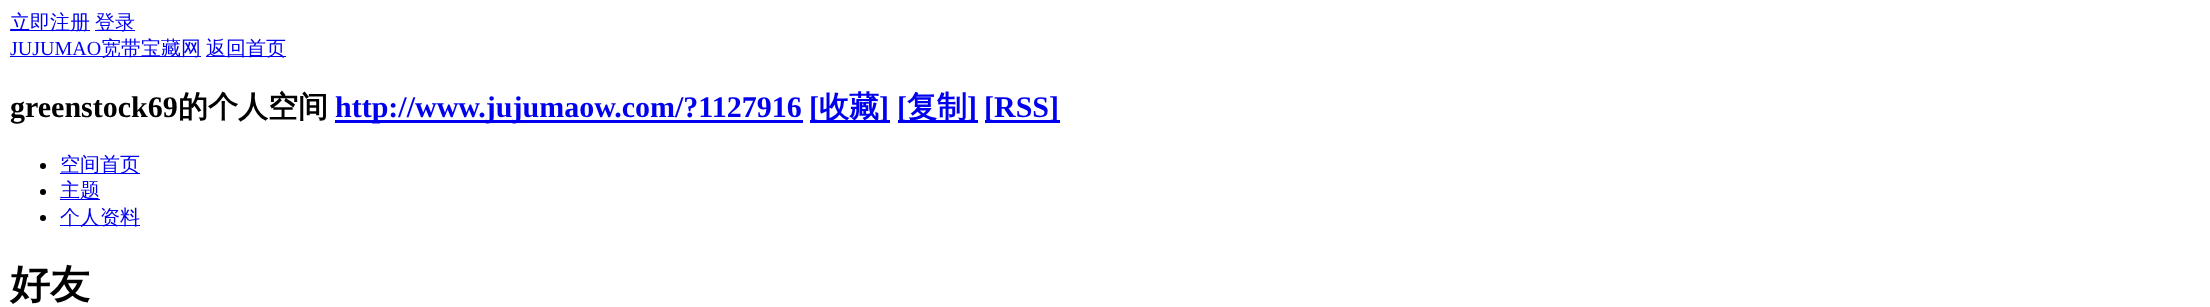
<svg xmlns="http://www.w3.org/2000/svg" width="2210" height="307" viewBox="0 0 2210 307">
  <rect width="100%" height="100%" fill="#ffffff"/>
  <rect x="10" y="30" width="80" height="1" fill="#0000ee"/>
  <text x="10" y="29" font-family="WenQuanYi Zen Hei" font-size="20" font-weight="500" fill="#0000ee">立即注册</text>
  <rect x="95" y="30" width="40" height="1" fill="#0000ee"/>
  <text x="95" y="29" font-family="WenQuanYi Zen Hei" font-size="20" font-weight="500" fill="#0000ee">登录</text>
  <text x="10" y="55" font-family="Liberation Serif" font-size="20" fill="#0000ee">JUJUMAO</text>
  <rect x="10" y="56" width="191" height="1" fill="#0000ee"/>
  <text x="101" y="55" font-family="WenQuanYi Zen Hei" font-size="20" font-weight="500" fill="#0000ee">宽带宝藏网</text>
  <rect x="206" y="56" width="80" height="1" fill="#0000ee"/>
  <text x="206" y="55" font-family="WenQuanYi Zen Hei" font-size="20" font-weight="500" fill="#0000ee">返回首页</text>
  <text x="10" y="117" font-family="Liberation Serif" font-size="30" font-weight="bold" fill="#000000">greenstock69</text>
  <text x="178" y="117" font-family="WenQuanYi Zen Hei" font-size="30" font-weight="bold" fill="#000000">的个人空间</text>
  <rect x="335" y="120" width="468" height="3" fill="#0000ee"/>
  <text x="335" y="117" font-family="Liberation Serif" font-size="30" font-weight="bold" fill="#0000ee">http://www.jujumaow.com/?1127916</text>
  <rect x="810" y="120" width="80" height="3" fill="#0000ee"/>
  <text x="809" y="117" font-family="Liberation Serif" font-size="30" font-weight="bold" fill="#0000ee">[</text>
  <text x="819" y="117" font-family="WenQuanYi Zen Hei" font-size="30" font-weight="bold" fill="#0000ee">收藏</text>
  <text x="879" y="117" font-family="Liberation Serif" font-size="30" font-weight="bold" fill="#0000ee">]</text>
  <rect x="898" y="120" width="80" height="3" fill="#0000ee"/>
  <text x="897" y="117" font-family="Liberation Serif" font-size="30" font-weight="bold" fill="#0000ee">[</text>
  <text x="907" y="117" font-family="WenQuanYi Zen Hei" font-size="30" font-weight="bold" fill="#0000ee">复制</text>
  <text x="967" y="117" font-family="Liberation Serif" font-size="30" font-weight="bold" fill="#0000ee">]</text>
  <rect x="985" y="120" width="75" height="3" fill="#0000ee"/>
  <text x="984" y="117" font-family="Liberation Serif" font-size="30" font-weight="bold" fill="#0000ee">[RSS]</text>
  <circle cx="43" cy="166" r="3" fill="#000000"/>
  <rect x="60" y="173" width="80" height="1" fill="#0000ee"/>
  <text x="60" y="171" font-family="WenQuanYi Zen Hei" font-size="20" font-weight="500" fill="#0000ee">空间首页</text>
  <circle cx="43" cy="192" r="3" fill="#000000"/>
  <rect x="60" y="199" width="40" height="1" fill="#0000ee"/>
  <text x="60" y="197" font-family="WenQuanYi Zen Hei" font-size="20" font-weight="500" fill="#0000ee">主题</text>
  <circle cx="43" cy="218" r="3" fill="#000000"/>
  <rect x="60" y="225" width="80" height="1" fill="#0000ee"/>
  <text x="60" y="224" font-family="WenQuanYi Zen Hei" font-size="20" font-weight="500" fill="#0000ee">个人资料</text>
  <text x="10" y="298" font-family="WenQuanYi Zen Hei" font-size="40" font-weight="bold" fill="#000000">好友</text>
</svg>
